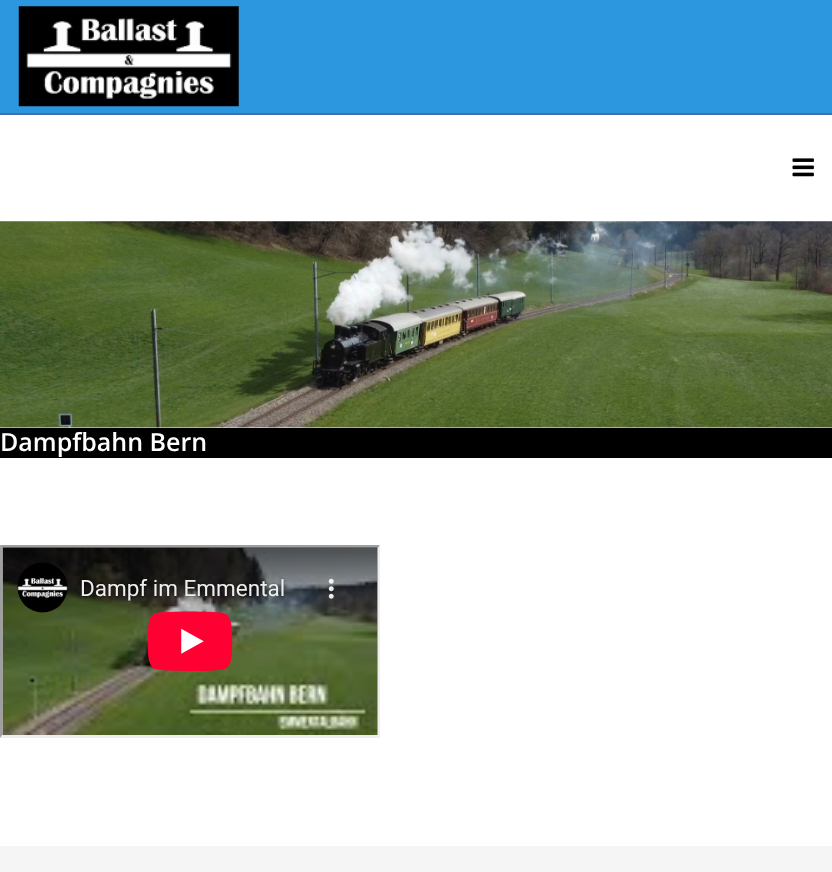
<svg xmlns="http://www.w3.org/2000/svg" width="832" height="872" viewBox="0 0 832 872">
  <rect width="100%" height="100%" fill="#ffffff"/>
  <path d="M0 112V115H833V3H832V112Z" fill="#426fb1"/>
  <rect x="0" y="0" width="832" height="113" fill="#2c97de"/>
  <image x="18" y="6" width="221" height="101" href="img1.png"/>
  <image x="792" y="158" width="22" height="19" href="img2.png"/>
  <image x="0" y="221" width="832" height="207" href="img3.png"/>
  <rect x="0" y="428" width="832" height="30" fill="#000000"/>
  <text x="0" y="451" font-family="Open Sans" font-size="25" font-weight="600" fill="#ffffff">Dampfbahn Bern</text>
  <path d="M0 545H380L378 548H2Z" fill="#9f9f9f"/>
  <path d="M380 545V738L378 735V548Z" fill="#eeeeee"/>
  <path d="M380 738H0L2 735H378Z" fill="#eeeeee"/>
  <path d="M0 738V545L2 548V735Z" fill="#9f9f9f"/>
  <image x="2" y="547" width="376" height="188" href="img4.png"/>
  <rect x="0" y="846" width="832" height="26" fill="#f5f5f5"/>
</svg>
